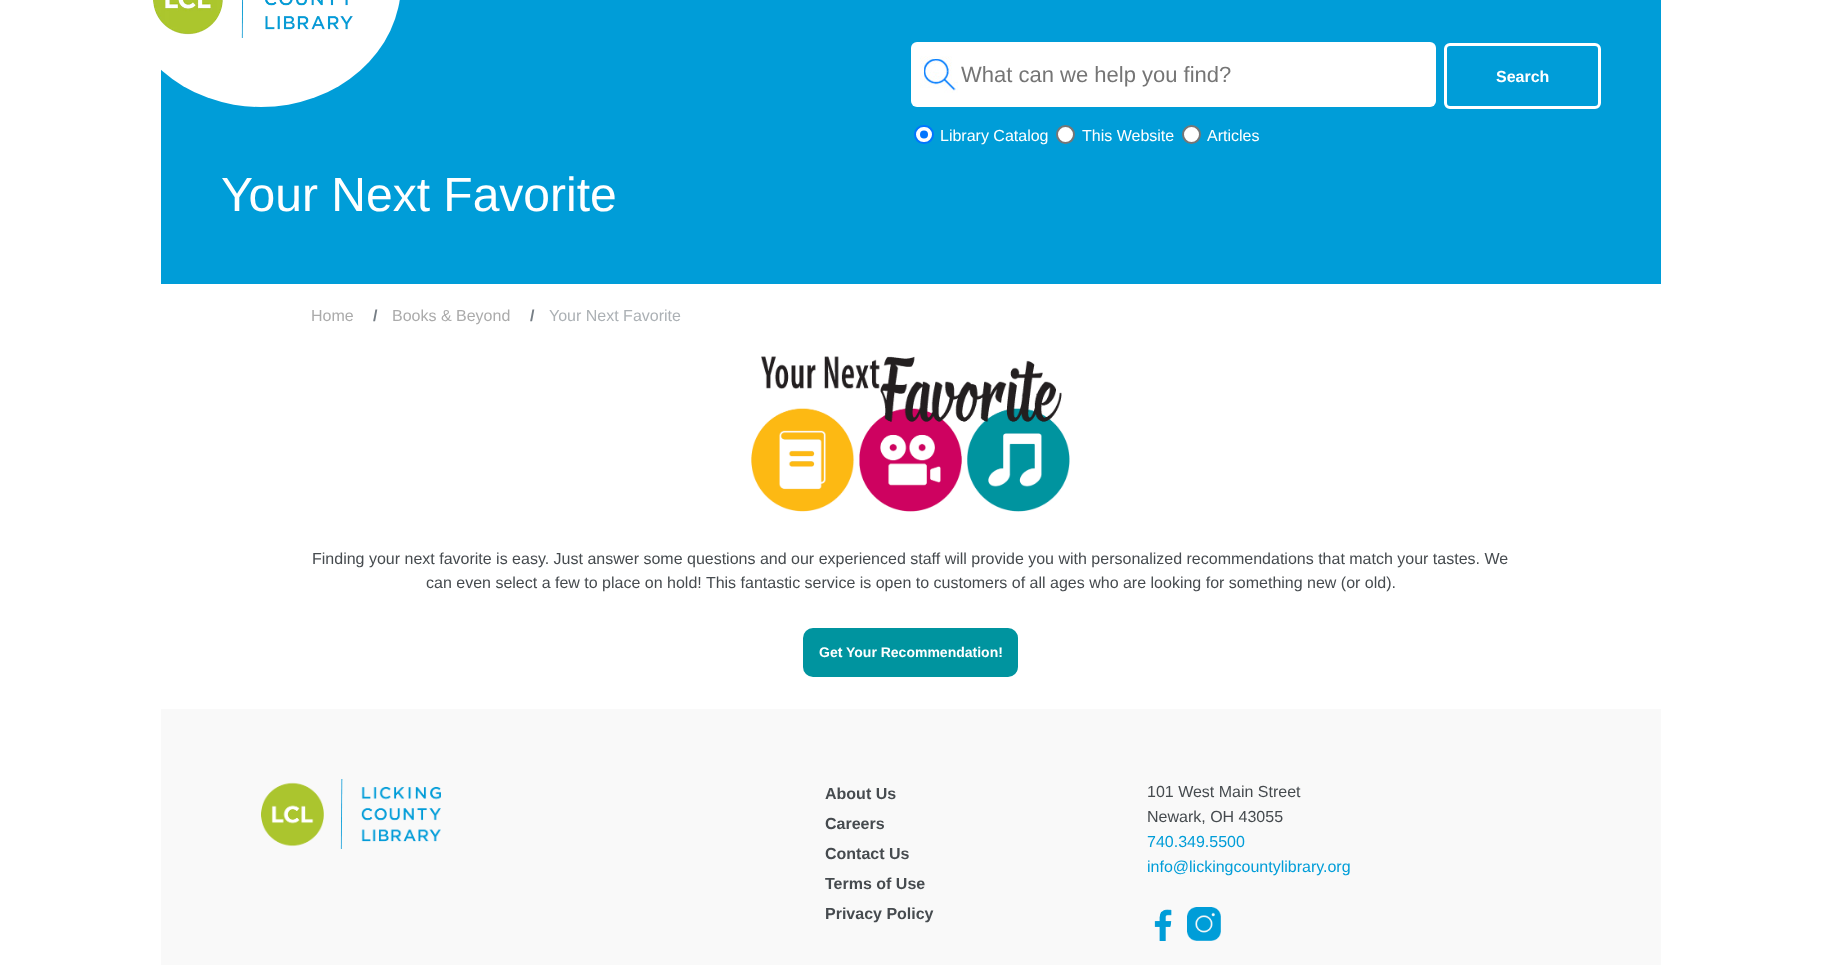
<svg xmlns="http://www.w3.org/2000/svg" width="1821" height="965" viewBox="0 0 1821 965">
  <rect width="100%" height="100%" fill="#ffffff"/>
  <rect x="161" y="0" width="1500" height="284" fill="#009dd8"/>
  <rect x="121" y="-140" width="280" height="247" rx="140" fill="#ffffff"/>
  <image x="153" y="0" width="200" height="38" href="img1.png"/>
  <rect x="911" y="42" width="525" height="65" rx="6" fill="#ffffff"/>
  <image x="920" y="56" width="38" height="37" href="img2.png"/>
  <text x="961" y="82" font-family="Liberation Sans" font-size="22" fill="#757575">What can we help you find?</text>
  <rect x="1445.5" y="44.5" width="154" height="63" rx="4.5" fill="none" stroke="#ffffff" stroke-width="3"/>
  <text x="1496" y="82" font-family="Liberation Sans" font-size="16" font-weight="bold" fill="#ffffff">Search</text>
  <rect x="915" y="126" width="18" height="17" rx="8.5" fill="#ffffff" stroke="#0075ff" stroke-width="2"/>
  <circle cx="924" cy="134.5" r="4" fill="#0075ff"/>
  <text x="940" y="141" font-family="Liberation Sans" font-size="16" fill="#ffffff">Library Catalog</text>
  <circle cx="1065.5" cy="134.5" r="8.5" fill="#ffffff" stroke="#767676" stroke-width="2"/>
  <text x="1082" y="141" font-family="Liberation Sans" font-size="16" fill="#ffffff">This Website</text>
  <circle cx="1191.5" cy="134.5" r="8.5" fill="#ffffff" stroke="#767676" stroke-width="2"/>
  <text x="1207" y="141" font-family="Liberation Sans" font-size="16" fill="#ffffff">Articles</text>
  <text x="221" y="211" font-family="Liberation Sans" font-size="48" fill="#ffffff">Your Next Favorite</text>
  <text x="311" y="321" font-family="Liberation Sans" font-size="16" fill="#ababab">Home</text>
  <text x="373" y="321" font-family="Liberation Sans" font-size="16" font-weight="bold" fill="#767e85">/</text>
  <text x="392" y="321" font-family="Liberation Sans" font-size="16" fill="#ababab">Books &amp; Beyond</text>
  <text x="530" y="321" font-family="Liberation Sans" font-size="16" font-weight="bold" fill="#767e85">/</text>
  <text x="549" y="321" font-family="Liberation Sans" font-size="16" fill="#acb1b5">Your Next Favorite</text>
  <image x="751" y="356" width="319" height="156" href="img3.png"/>
  <text x="312" y="564" font-family="Liberation Sans" font-size="16" fill="#464b4f">Finding your next favorite is easy. Just answer some questions and our experienced staff will provide you with personalized recommendations that match your tastes. We</text>
  <text x="426" y="588" font-family="Liberation Sans" font-size="16" fill="#464b4f">can even select a few to place on hold! This fantastic service is open to customers of all ages who are looking for something new (or old).</text>
  <rect x="803" y="628" width="215" height="49" rx="10" fill="#00949f"/>
  <text x="819" y="657" font-family="Liberation Sans" font-size="14" font-weight="bold" fill="#ffffff">Get Your Recommendation!</text>
  <rect x="161" y="709" width="1500" height="256" fill="#f9f9f9"/>
  <image x="261" y="779" width="180" height="70" href="img4.png"/>
  <text x="825" y="799" font-family="Liberation Sans" font-size="16" font-weight="bold" fill="#464b4f">About Us</text>
  <text x="825" y="829" font-family="Liberation Sans" font-size="16" font-weight="bold" fill="#464b4f">Careers</text>
  <text x="825" y="859" font-family="Liberation Sans" font-size="16" font-weight="bold" fill="#464b4f">Contact Us</text>
  <text x="825" y="889" font-family="Liberation Sans" font-size="16" font-weight="bold" fill="#464b4f">Terms of Use</text>
  <text x="825" y="919" font-family="Liberation Sans" font-size="16" font-weight="bold" fill="#464b4f">Privacy Policy</text>
  <text x="1147" y="797" font-family="Liberation Sans" font-size="16" fill="#464b4f">101 West Main Street</text>
  <text x="1147" y="822" font-family="Liberation Sans" font-size="16" fill="#464b4f">Newark, OH 43055</text>
  <text x="1147" y="847" font-family="Liberation Sans" font-size="16" fill="#009dd8">740.349.5500</text>
  <text x="1147" y="872" font-family="Liberation Sans" font-size="16" fill="#009dd8">info@lickingcountylibrary.org</text>
  <image x="1154" y="909" width="18" height="32" href="img5.png"/>
  <image x="1187" y="907" width="34" height="34" href="img6.png"/>
</svg>
